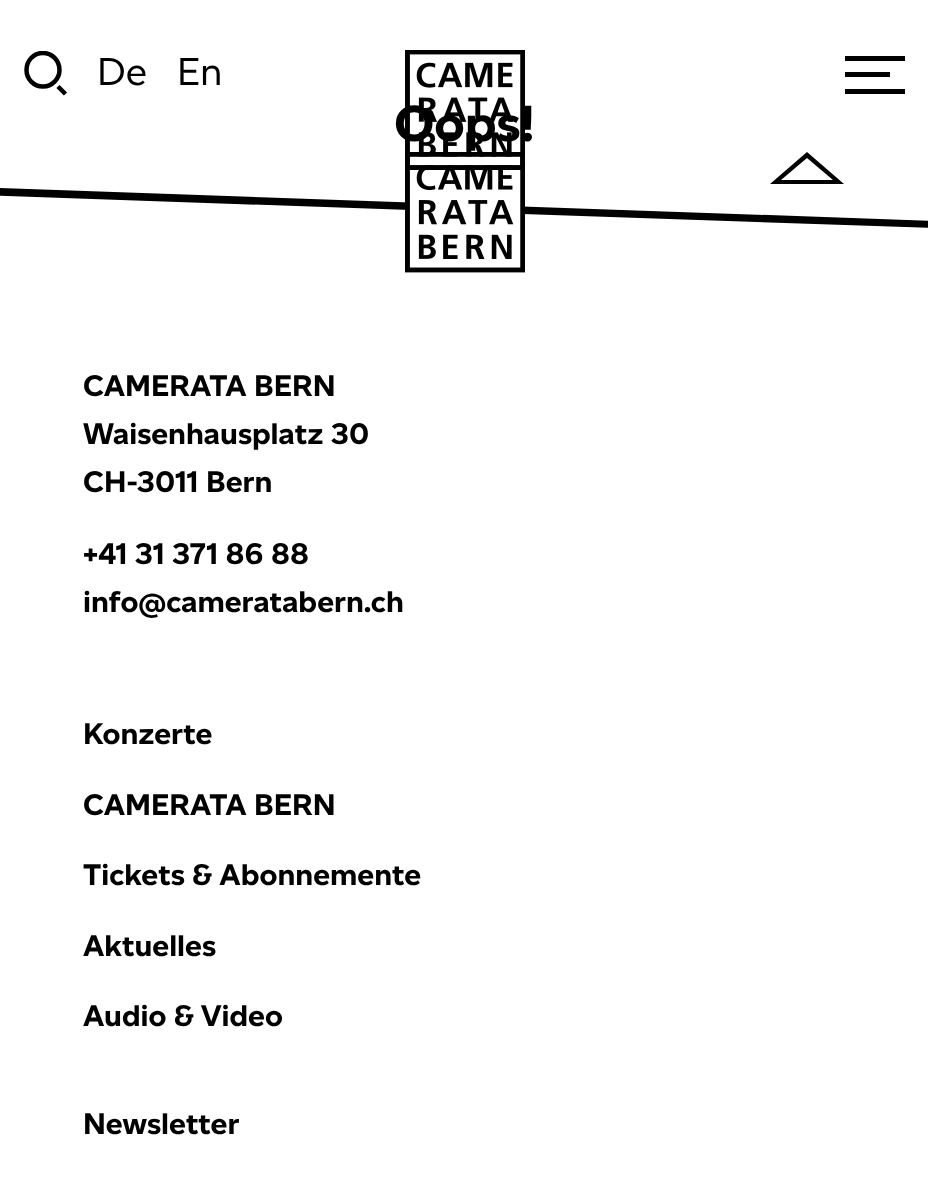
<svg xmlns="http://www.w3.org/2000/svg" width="928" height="1186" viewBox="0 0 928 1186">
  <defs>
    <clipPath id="clip1"><rect x="24" y="51" width="44" height="44"/></clipPath>
  </defs>
  <rect width="100%" height="100%" fill="#ffffff"/>
  <g clip-path="url(#clip1)">
    <path d="M43 53C33.5 53 26.5 60.5 26.5 70C26.5 79 33.5 86.5 43 86.5C52 86.5 59.5 79 59.5 70C59.5 60.5 52 53 43 53Z" fill="none" stroke="#000000" stroke-width="4.5"/>
  </g>
  <path d="M58 86.5L65.5 94" fill="none" stroke="#000000" stroke-width="4.5"/>
  <text x="97" y="85" font-family="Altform" font-size="39" fill="#000000">De</text>
  <text x="177" y="85" font-family="Altform" font-size="39" fill="#000000">En</text>
  <text x="394" y="141" font-family="Altform" font-size="51" font-weight="bold" fill="#000000">Oops!</text>
  <path d="M-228 180L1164 229V236L-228 188Z" fill="#000000"/>
  <image x="405" y="152" width="120" height="121" href="img2.png"/>
  <image x="405" y="50" width="120" height="120" href="img1.png"/>
  <rect x="845" y="56" width="60" height="5" fill="#000000"/>
  <rect x="845" y="72" width="45" height="5" fill="#000000"/>
  <rect x="845" y="89" width="60" height="5" fill="#000000"/>
  <path d="M833 180L807 158L781 180H833M844 184H770L807 152Z" fill="#000000"/>
  <text x="83" y="396" font-family="Altform" font-size="30" font-weight="bold" fill="#000000">CAMERATA BERN</text>
  <text x="83" y="444" font-family="Altform" font-size="30" font-weight="bold" fill="#000000">Waisenhausplatz 30</text>
  <text x="83" y="492" font-family="Altform" font-size="30" font-weight="bold" fill="#000000">CH-3011 Bern</text>
  <text x="83" y="564" font-family="Altform" font-size="30" font-weight="bold" fill="#000000">+41 31 371 86 88</text>
  <text x="83" y="612" font-family="Altform" font-size="30" font-weight="bold" fill="#000000">info@cameratabern.ch</text>
  <text x="83" y="744" font-family="Altform" font-size="30" font-weight="bold" fill="#000000">Konzerte</text>
  <text x="83" y="815" font-family="Altform" font-size="30" font-weight="bold" fill="#000000">CAMERATA BERN</text>
  <text x="83" y="885" font-family="Altform" font-size="30" font-weight="bold" fill="#000000">Tickets &amp; Abonnemente</text>
  <text x="83" y="956" font-family="Altform" font-size="30" font-weight="bold" fill="#000000">Aktuelles</text>
  <text x="83" y="1026" font-family="Altform" font-size="30" font-weight="bold" fill="#000000">Audio &amp; Video</text>
  <text x="83" y="1134" font-family="Altform" font-size="30" font-weight="bold" fill="#000000">Newsletter</text>
</svg>
